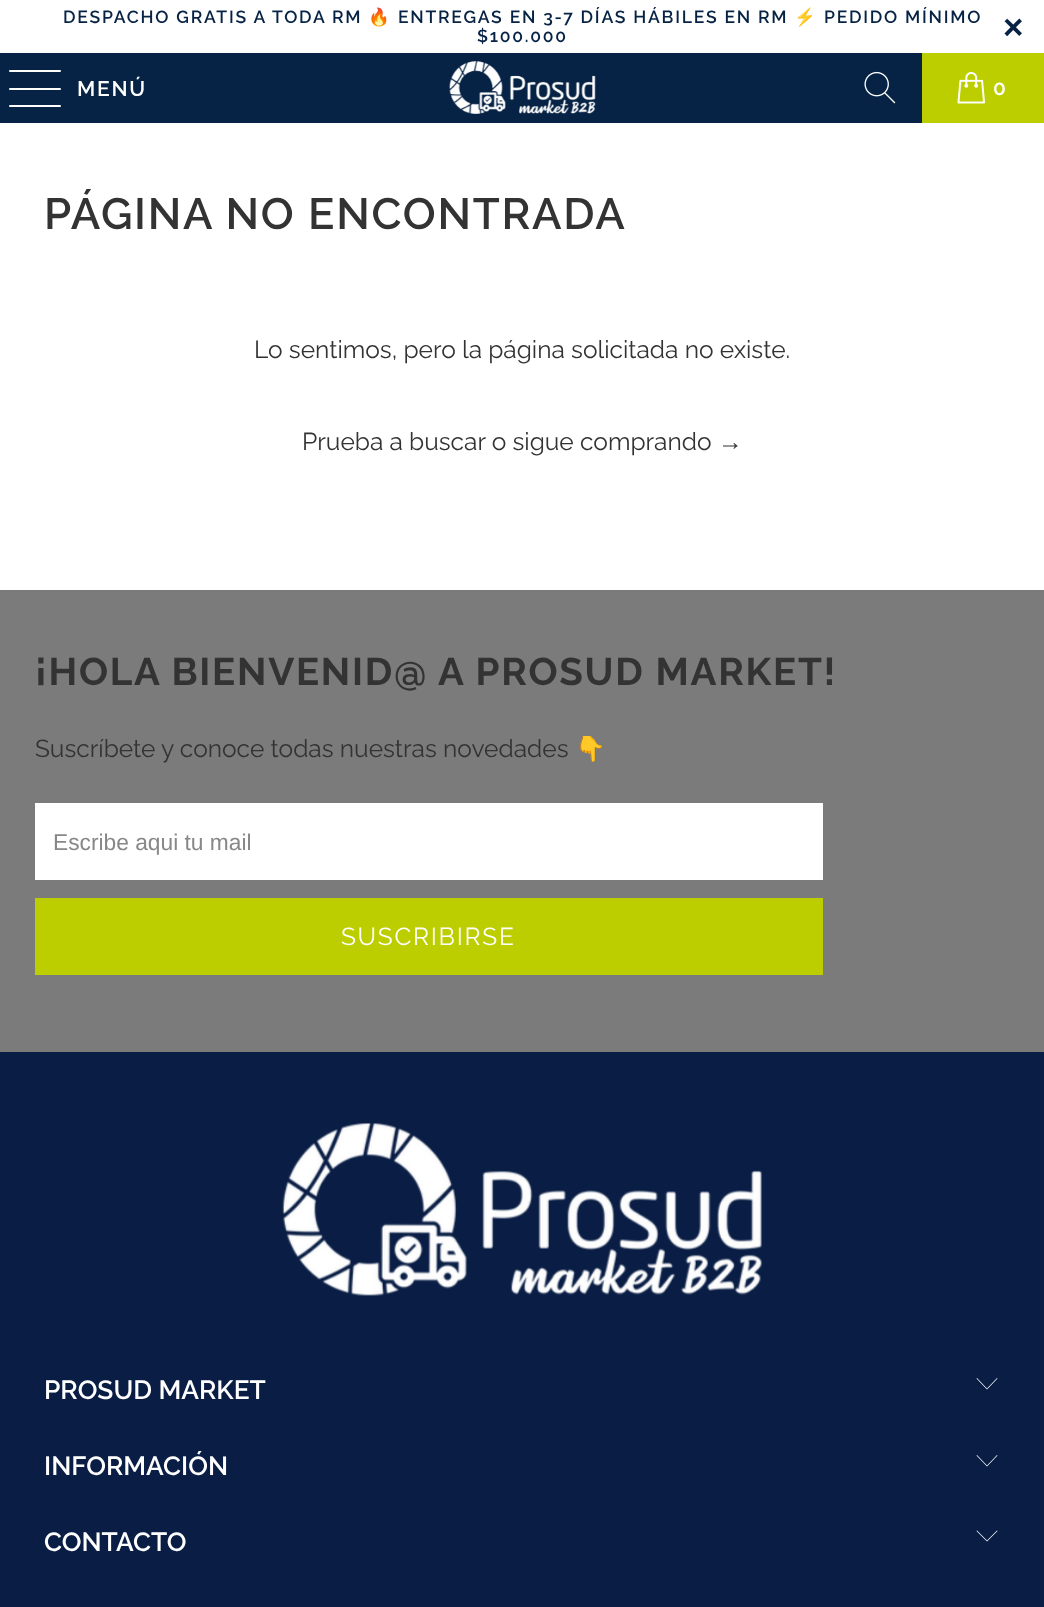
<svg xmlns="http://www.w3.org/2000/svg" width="1044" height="1607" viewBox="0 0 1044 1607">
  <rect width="100%" height="100%" fill="#ffffff"/>
  <text x="63" y="23" font-family="Raleway" font-size="17.5" font-weight="600" letter-spacing="1.75" fill="#062244">DESPACHO GRATIS A TODA RM</text>
  <text x="368" y="23" font-family="Noto Color Emoji" font-size="17.5" font-weight="bold" letter-spacing="1.75" fill="#062244">🔥</text>
  <text x="398" y="23" font-family="Raleway" font-size="17.5" font-weight="600" letter-spacing="1.75" fill="#062244">ENTREGAS EN 3-7 DÍAS HÁBILES EN RM</text>
  <text x="794" y="23" font-family="Noto Color Emoji" font-size="17.5" font-weight="bold" letter-spacing="1.75" fill="#062244">⚡</text>
  <text x="824" y="23" font-family="Raleway" font-size="17.5" font-weight="600" letter-spacing="1.75" fill="#062244">PEDIDO MÍNIMO</text>
  <text x="477" y="42" font-family="Raleway" font-size="17.5" font-weight="600" letter-spacing="1.75" fill="#062244">$100.000</text>
  <text x="1003" y="39" font-family="Liberation Sans" font-size="35" font-weight="bold" letter-spacing="1.75" fill="#062244">×</text>
  <rect x="0" y="53" width="922" height="70" fill="#062244"/>
  <rect x="9" y="70" width="52" height="2" rx="1" fill="#ffffff"/>
  <rect x="9" y="88" width="52" height="2" rx="1" fill="#ffffff"/>
  <rect x="9" y="105" width="52" height="2" rx="1" fill="#ffffff"/>
  <text x="77" y="96" font-family="Raleway" font-size="21" font-weight="600" letter-spacing="1.75" fill="#ffffff">MENÚ</text>
  <image x="449" y="61" width="147" height="53" href="img1.png"/>
  <image x="864" y="71" width="32" height="33" href="img2.png"/>
  <rect x="922" y="53" width="122" height="70" fill="#bdce00"/>
  <image x="957" y="72" width="28" height="32" href="img3.png"/>
  <text x="993" y="95" font-family="Raleway" font-size="21" font-weight="600" letter-spacing="1.75" fill="#ffffff">0</text>
  <text x="44" y="229" font-family="Raleway" font-size="43.75" font-weight="600" letter-spacing="1.75" fill="#333333">PÁGINA NO ENCONTRADA</text>
  <text x="254" y="358" font-family="Raleway" font-size="24.5" fill="#333333">Lo sentimos, pero la página solicitada no existe.</text>
  <text x="302" y="450" font-family="Raleway" font-size="24.5" fill="#333333">Prueba a buscar o sigue comprando</text>
  <text x="718" y="450" font-family="Liberation Sans" font-size="24.5" fill="#333333">→</text>
  <rect x="0" y="590" width="1044" height="462" fill="#7c7b7b"/>
  <text x="35" y="685" font-family="Raleway" font-size="38.5" font-weight="bold" letter-spacing="1.75" fill="#333333">¡HOLA BIENVENID@ A PROSUD MARKET!</text>
  <text x="35" y="757" font-family="Raleway" font-size="24.5" fill="#333333">Suscríbete y conoce todas nuestras novedades</text>
  <text x="575" y="757" font-family="Noto Color Emoji" font-size="24.5" fill="#333333">👇</text>
  <rect x="35" y="803" width="788" height="77" fill="#ffffff"/>
  <text x="53" y="850" font-family="Liberation Sans" font-size="22.75" fill="#888888">Escribe aqui tu mail</text>
  <rect x="35" y="898" width="788" height="77" fill="#bdce00"/>
  <text x="341" y="945" font-family="Raleway" font-size="24.5" letter-spacing="1.75" fill="#ffffff">SUSCRIBIRSE</text>
  <rect x="0" y="1052" width="1044" height="555" fill="#0a1e45"/>
  <image x="282" y="1123" width="480" height="173" href="img4.png"/>
  <text x="44" y="1399" font-family="Raleway" font-size="26.25" font-weight="600" fill="#ffffff">PROSUD MARKET</text>
  <path d="M987 1389.5L976.5 1378.5L977 1378L987 1388.5L997 1378L997.5 1378.5Z" fill="#ffffff"/>
  <text x="44" y="1475" font-family="Raleway" font-size="26.25" font-weight="600" fill="#ffffff">INFORMACIÓN</text>
  <path d="M987 1466.5L976.5 1455.5L977 1455L987 1465.5L997 1455L997.5 1455.5Z" fill="#ffffff"/>
  <text x="44" y="1551" font-family="Raleway" font-size="26.25" font-weight="600" fill="#ffffff">CONTACTO</text>
  <path d="M987 1541.5L976.5 1531L977 1530.5L987 1540.5L997 1530.5L997.5 1531Z" fill="#ffffff"/>
</svg>
